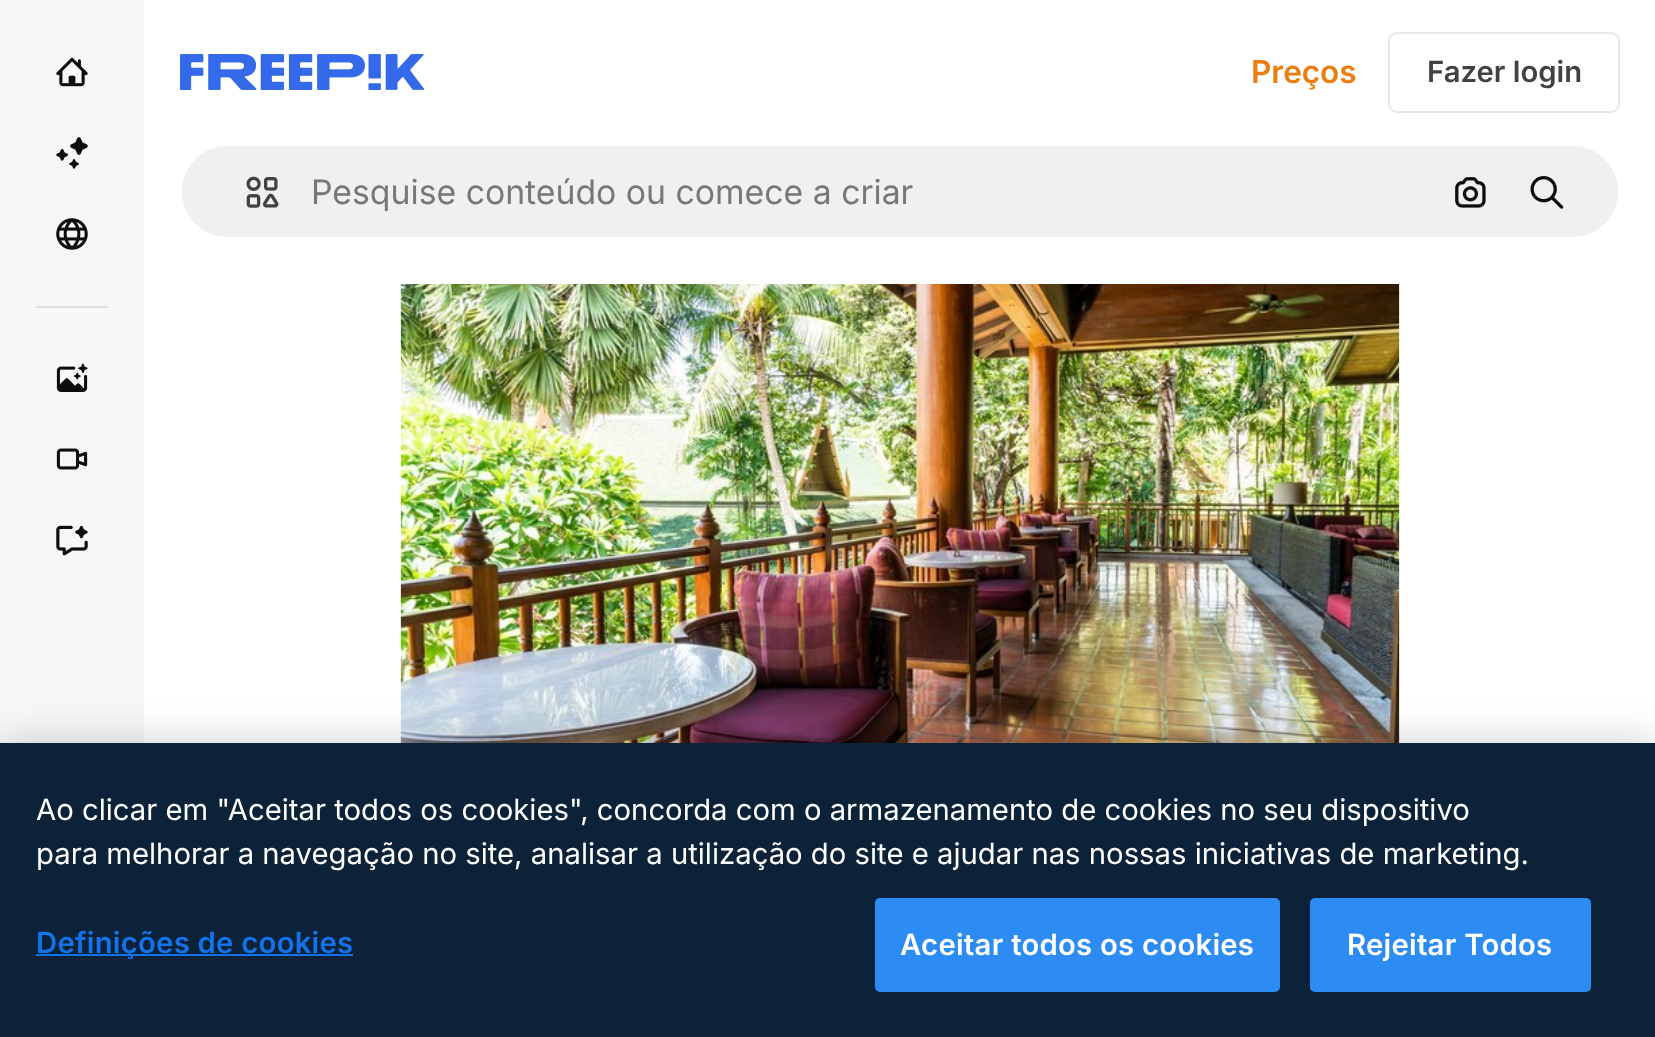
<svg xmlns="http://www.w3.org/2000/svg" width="1655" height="1037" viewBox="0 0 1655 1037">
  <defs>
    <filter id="blur1" x="-50%" y="-200%" width="200%" height="500%"><feGaussianBlur stdDeviation="20"/></filter>
  </defs>
  <rect width="100%" height="100%" fill="#ffffff"/>
  <rect x="0" y="0" width="144" height="743" fill="#f7f7f7"/>
  <image x="56" y="57" width="32" height="30" href="img1.png"/>
  <image x="56" y="137" width="32" height="32" href="img2.png"/>
  <image x="56" y="218" width="32" height="32" href="img3.png"/>
  <rect x="36" y="306" width="72" height="2" fill="#e0e0e0"/>
  <image x="56" y="363" width="32" height="29" href="img4.png"/>
  <image x="56" y="448" width="32" height="22" href="img5.png"/>
  <image x="56" y="525" width="32" height="31" href="img6.png"/>
  <image x="180" y="54" width="245" height="36" href="img7.png"/>
  <text x="1251" y="83" font-family="Inter" font-size="31.5" font-weight="600" fill="#ea7e11">Preços</text>
  <rect x="1389" y="33" width="230" height="79" rx="8" fill="none" stroke="#e7e7e7" stroke-width="2"/>
  <text x="1427" y="82" font-family="Inter" font-size="29.25" font-weight="600" fill="#424242">Fazer login</text>
  <rect x="181" y="145" width="1438" height="93" rx="46.5" fill="#f0f0f0" stroke="#ffffff" stroke-width="2"/>
  <image x="246" y="176" width="33" height="32" href="img8.png"/>
  <text x="311" y="204" font-family="Inter" font-size="33.75" fill="#777777">Pesquise conteúdo ou comece a criar</text>
  <image x="1455" y="177" width="31" height="31" href="img9.png"/>
  <image x="1530" y="176" width="34" height="33" href="img10.png"/>
  <image x="400" y="284" width="1000" height="459" href="img11.png"/>
  <rect x="0" y="743" width="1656" height="294" fill="#000000" fill-opacity="0.2" filter="url(#blur1)"/>
  <rect x="0" y="743" width="1655" height="294" fill="#0b2239"/>
  <text x="36" y="820" font-family="Inter" font-size="29.27" fill="#ffffff">Ao clicar em "Aceitar todos os cookies", concorda com o armazenamento de cookies no seu dispositivo</text>
  <text x="36" y="864" font-family="Inter" font-size="29.27" fill="#ffffff">para melhorar a navegação no site, analisar a utilização do site e ajudar nas nossas iniciativas de marketing.</text>
  <rect x="36" y="954" width="317" height="2" fill="#1273eb"/>
  <text x="36" y="953" font-family="Inter" font-size="29.27" font-weight="600" letter-spacing="0.25" fill="#1273eb">Definições de cookies</text>
  <rect x="876" y="899" width="403" height="92" rx="4" fill="#2c8cf4" stroke="#2c8cf4" stroke-width="2"/>
  <text x="900" y="955" font-family="Inter" font-size="29.27" font-weight="600" letter-spacing="0.25" fill="#ffffff">Aceitar todos os cookies</text>
  <rect x="1311" y="899" width="279" height="92" rx="4" fill="#2c8cf4" stroke="#2c8cf4" stroke-width="2"/>
  <text x="1347" y="955" font-family="Inter" font-size="29.27" font-weight="600" letter-spacing="0.25" fill="#ffffff">Rejeitar Todos</text>
</svg>
